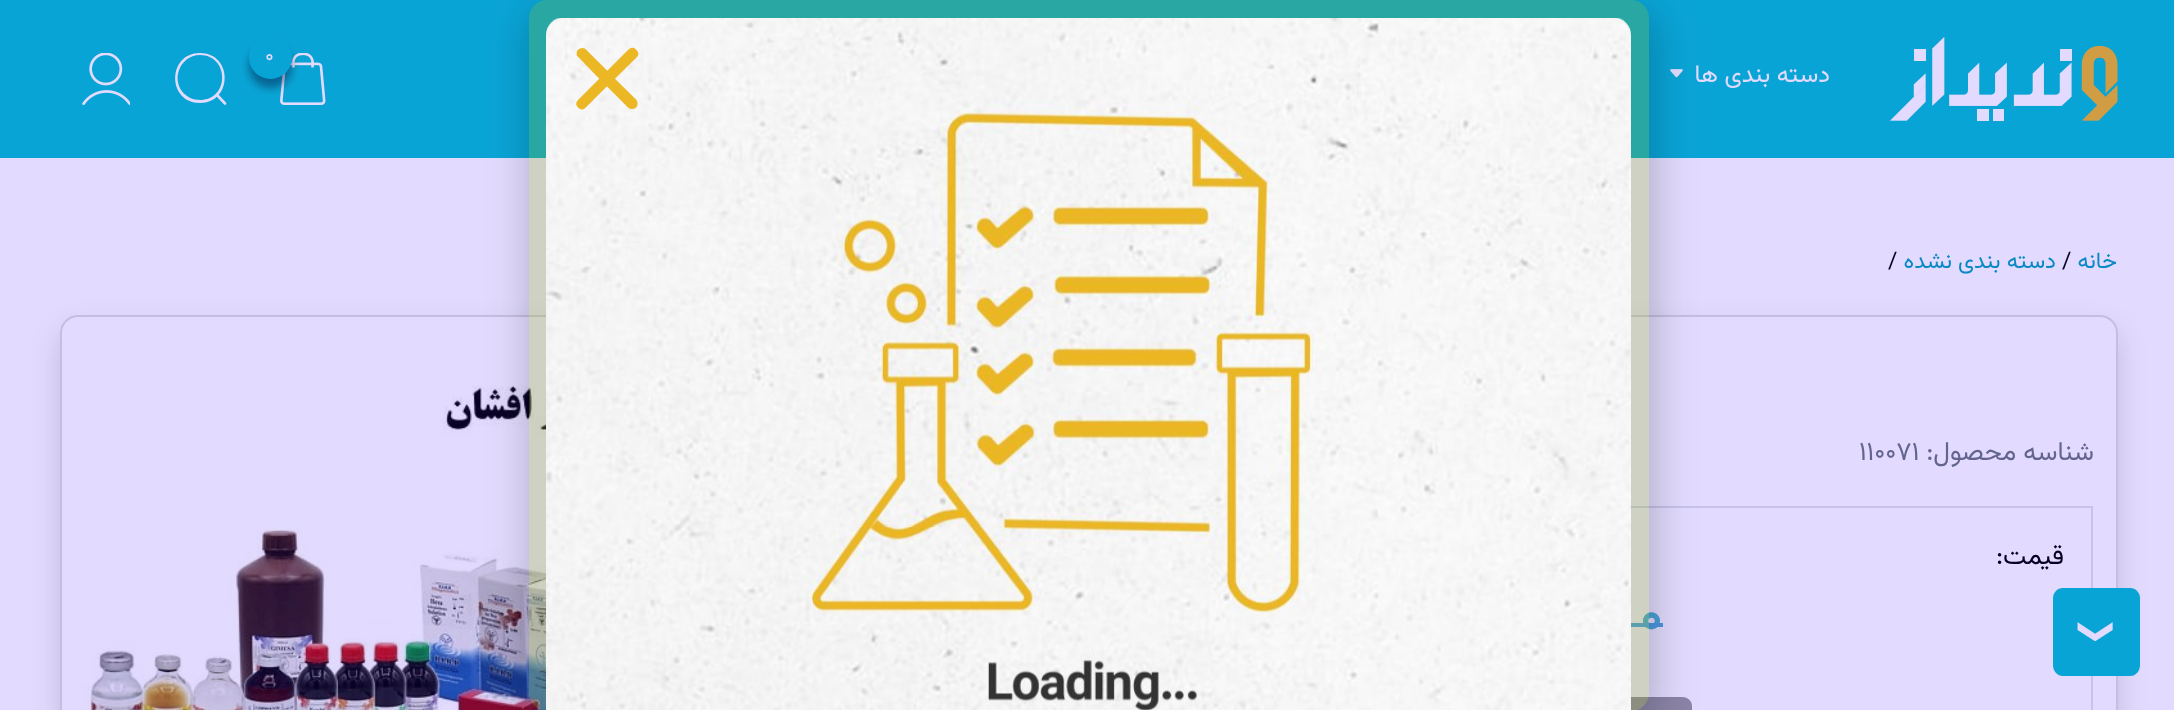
<svg xmlns="http://www.w3.org/2000/svg" width="2174" height="710" viewBox="0 0 2174 710">
  <defs>
    <clipPath id="clip1"><path d="M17 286H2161V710H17ZM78 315H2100C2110 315 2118 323 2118 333V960C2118 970 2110 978 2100 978H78C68 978 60 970 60 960V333C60 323 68 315 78 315Z" clip-rule="evenodd"/></clipPath>
    <filter id="blur1" x="-50%" y="-200%" width="200%" height="500%"><feGaussianBlur stdDeviation="14"/></filter>
    <clipPath id="clip2"><path d="M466 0H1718V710H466ZM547 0H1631C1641 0 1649 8 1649 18V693C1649 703 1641 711 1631 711H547C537 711 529 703 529 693V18C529 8 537 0 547 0Z" clip-rule="evenodd"/></clipPath>
    <filter id="blur2" x="-50%" y="-200%" width="200%" height="500%"><feGaussianBlur stdDeviation="20"/></filter>
    <filter id="blur3" x="-50%" y="-200%" width="200%" height="500%"><feGaussianBlur stdDeviation="4.5"/></filter>
  </defs>
  <rect width="100%" height="100%" fill="#e2dbff"/>
  <rect x="0" y="0" width="2174" height="158" fill="#09a4d6"/>
  <image x="1670" y="69" width="13" height="9" href="img6.png"/>
  <g clip-path="url(#clip1)">
    <rect x="60" y="329" width="2058" height="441" rx="18" fill="#070024" fill-opacity="0.15" filter="url(#blur1)"/>
  </g>
  <rect x="61" y="316" width="2056" height="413" rx="17" fill="none" stroke="#c5bee2" stroke-width="2"/>
  <rect x="768" y="507" width="1324" height="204" fill="none" stroke="#c6c2ea" stroke-width="2"/>
  <text x="1640" y="633" font-family="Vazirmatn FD" font-size="52" font-weight="bold" fill="#49a1d6">۰</text>
  <rect x="1631" y="623" width="32" height="4" fill="#4a97e2"/>
  <rect x="1561" y="697" width="131" height="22" rx="9" fill="#8b84a7"/>
  <image x="82" y="355" width="464" height="355" href="img7.png"/>
  <g clip-path="url(#clip2)">
    <rect x="527" y="9" width="1130" height="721" rx="23" fill="#000000" fill-opacity="0.2" filter="url(#blur2)"/>
  </g>
  <rect x="529" y="0" width="1120" height="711" rx="18" fill="#91b400" fill-opacity="0.24"/>
  <image x="546" y="18" width="1085" height="692" href="img1.png"/>
  <image x="576" y="47" width="63" height="63" href="img2.png"/>
  <image x="1890" y="37" width="228" height="84" href="img3.png"/>
  <image x="280" y="53" width="46" height="52" href="img4.png"/>
  <rect x="249" y="44" width="43" height="44" rx="21.5" fill="#070024" fill-opacity="0.4" filter="url(#blur3)"/>
  <rect x="249" y="35" width="43" height="44" rx="21.5" fill="#09a4d6"/>
  <text x="265" y="62" font-family="Vazirmatn FD" font-size="21" fill="#e2dbff">0</text>
  <path d="M200 55C229 55 230 99 201 100C196 100 191 99 187 96C169 83 179 55 200 55M200 53C167 53 167 103 200 103C233 103 233 53 200 53Z" fill="#e2dbff"/>
  <path d="M217.5 95.5L225 103.5" fill="none" stroke="#e2dbff" stroke-width="2.6" stroke-linecap="round"/>
  <image x="82" y="53" width="48" height="52" href="img5.png"/>
  <text x="1830" y="82" font-family="Vazirmatn FD" font-size="24.5" direction="rtl" fill="#e2dbff">دسته بندی ها</text>
  <text x="2117" y="268" font-family="Vazirmatn FD" font-size="22.75" direction="rtl" fill="#0888c4">خانه</text>
  <text x="2062" y="268" font-family="Vazirmatn FD" font-size="22.75" fill="#070024">/</text>
  <text x="2056" y="268" font-family="Vazirmatn FD" font-size="22.75" direction="rtl" fill="#0888c4">دسته بندی نشده</text>
  <text x="1888" y="268" font-family="Vazirmatn FD" font-size="22.75" fill="#070024">/</text>
  <text x="2094" y="460" font-family="Vazirmatn FD" font-size="26.25" direction="rtl" fill="#64658f">شناسه محصول:</text>
  <text x="1859" y="460" font-family="Vazirmatn FD" font-size="26.25" fill="#64658f">110071</text>
  <text x="2064" y="564" font-family="Vazirmatn FD" font-size="26.25" direction="rtl" fill="#070024">قيمت:</text>
  <path d="M2140 598V665C2140 671 2136 676 2130 676H2063C2057 676 2053 671 2053 665V598C2053 593 2057 588 2063 588H2130C2136 588 2140 593 2140 598Z" fill="#09a4d6"/>
  <text x="2086" y="617" transform="rotate(90 2086 617)" font-family="DejaVu Sans" font-size="35" fill="#e2dbff">❯</text>
</svg>
